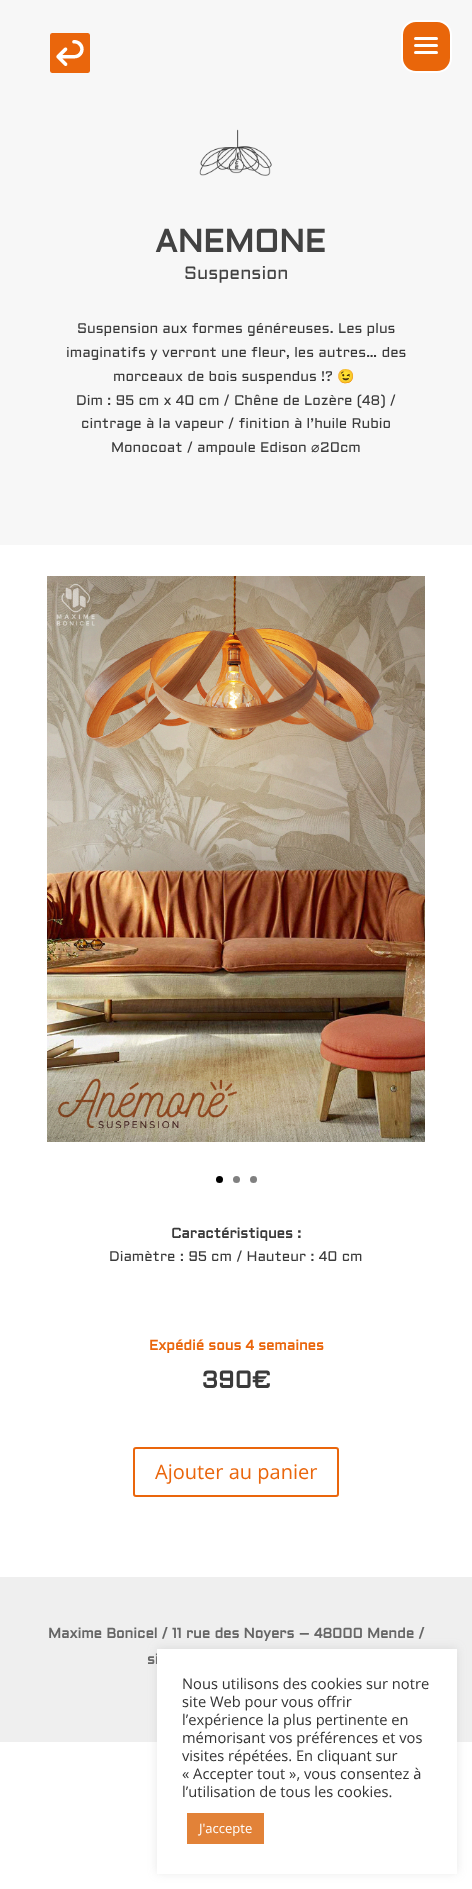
<svg xmlns="http://www.w3.org/2000/svg" width="472" height="1889" viewBox="0 0 472 1889">
  <defs>
    <filter id="blur1" x="-50%" y="-200%" width="200%" height="500%"><feGaussianBlur stdDeviation="5"/></filter>
  </defs>
  <rect width="100%" height="100%" fill="#ffffff"/>
  <rect x="0" y="0" width="472" height="545" fill="#f7f7f7"/>
  <rect x="402" y="21" width="49" height="51" rx="14" fill="#e9660a" stroke="#ffffff" stroke-width="2"/>
  <rect x="414" y="37" width="24" height="3" rx="1.5" fill="#ffffff"/>
  <rect x="414" y="44" width="24" height="3" rx="1.5" fill="#ffffff"/>
  <rect x="414" y="51" width="24" height="3" rx="1.5" fill="#ffffff"/>
  <image x="50" y="33" width="40" height="40" href="img1.png"/>
  <image x="199" y="129" width="73" height="47" href="img2.png"/>
  <text x="155" y="252" font-family="Aldrich" font-size="32" font-weight="bold" fill="#424242">ANEMONE</text>
  <text x="184" y="279" font-family="Aldrich" font-size="18" fill="#424242">Suspension</text>
  <text x="77" y="333" font-family="Aldrich" font-size="14" fill="#3a3a3a">Suspension aux formes généreuses. Les plus</text>
  <text x="66" y="357" font-family="Aldrich" font-size="14" fill="#3a3a3a">imaginatifs y verront une fleur, les autres… des</text>
  <text x="113" y="381" font-family="Aldrich" font-size="14" fill="#3a3a3a">morceaux de bois suspendus !?</text>
  <text x="337" y="381" font-family="Noto Color Emoji" font-size="14" fill="#3a3a3a">😉</text>
  <text x="76" y="405" font-family="Aldrich" font-size="14" fill="#3a3a3a">Dim : 95 cm x 40 cm / Chêne de Lozère (48) /</text>
  <text x="81" y="428" font-family="Aldrich" font-size="14" fill="#3a3a3a">cintrage à la vapeur / finition à l’huile Rubio</text>
  <text x="111" y="452" font-family="Aldrich" font-size="14" fill="#3a3a3a">Monocoat / ampoule Edison</text>
  <text x="311" y="452" font-family="DejaVu Sans" font-size="14" fill="#3a3a3a">⌀</text>
  <text x="320" y="452" font-family="Aldrich" font-size="14" fill="#3a3a3a">20cm</text>
  <image x="47" y="576" width="378" height="566" href="img3.png"/>
  <circle cx="219.5" cy="1179.5" r="3.5" fill="#000000"/>
  <circle cx="236.5" cy="1179.5" r="3.5" fill="#808080"/>
  <circle cx="253.5" cy="1179.5" r="3.5" fill="#808080"/>
  <text x="171" y="1238" font-family="Aldrich" font-size="14" font-weight="bold" fill="#3a3a3a">Caractéristiques :</text>
  <text x="109" y="1261" font-family="Aldrich" font-size="14" fill="#3a3a3a">Diamètre : 95 cm / Hauteur : 40 cm</text>
  <text x="149" y="1350" font-family="Aldrich" font-size="14" font-weight="bold" fill="#ea660c">Expédié sous 4 semaines</text>
  <text x="202" y="1388" font-family="Aldrich" font-size="24" font-weight="bold" fill="#3a3a3a">390€</text>
  <rect x="134" y="1448" width="204" height="48" rx="2" fill="none" stroke="#ea660c" stroke-width="2"/>
  <text x="155" y="1479" font-family="Open Sans" font-size="20" fill="#ea660c">Ajouter au panier</text>
  <rect x="0" y="1577" width="472" height="165" fill="#efefef"/>
  <text x="48" y="1638" font-family="Aldrich" font-size="14" font-weight="bold" fill="#666666">Maxime Bonicel / 11 rue des Noyers – 48000 Mende /</text>
  <text x="147" y="1664" font-family="Aldrich" font-size="14" font-weight="bold" fill="#666666">si</text>
  <rect x="157" y="1648" width="300" height="225" fill="#acabab" fill-opacity="0.3" filter="url(#blur1)"/>
  <rect x="157" y="1649" width="300" height="225" fill="#ffffff"/>
  <text x="182" y="1689" font-family="Open Sans" font-size="14.7" fill="#333333">Nous utilisons des cookies sur notre</text>
  <text x="182" y="1707" font-family="Open Sans" font-size="14.7" fill="#333333">site Web pour vous offrir</text>
  <text x="182" y="1725" font-family="Open Sans" font-size="14.7" fill="#333333">l’expérience la plus pertinente en</text>
  <text x="182" y="1743" font-family="Open Sans" font-size="14.7" fill="#333333">mémorisant vos préférences et vos</text>
  <text x="182" y="1761" font-family="Open Sans" font-size="14.7" fill="#333333">visites répétées. En cliquant sur</text>
  <text x="182" y="1779" font-family="Open Sans" font-size="14.7" fill="#333333">« Accepter tout », vous consentez à</text>
  <text x="182" y="1797" font-family="Open Sans" font-size="14.7" fill="#333333">l’utilisation de tous les cookies.</text>
  <rect x="187" y="1813" width="77" height="31" fill="#e28238"/>
  <text x="199" y="1833" font-family="Open Sans" font-size="13" fill="#ffffff">J'accepte</text>
</svg>
